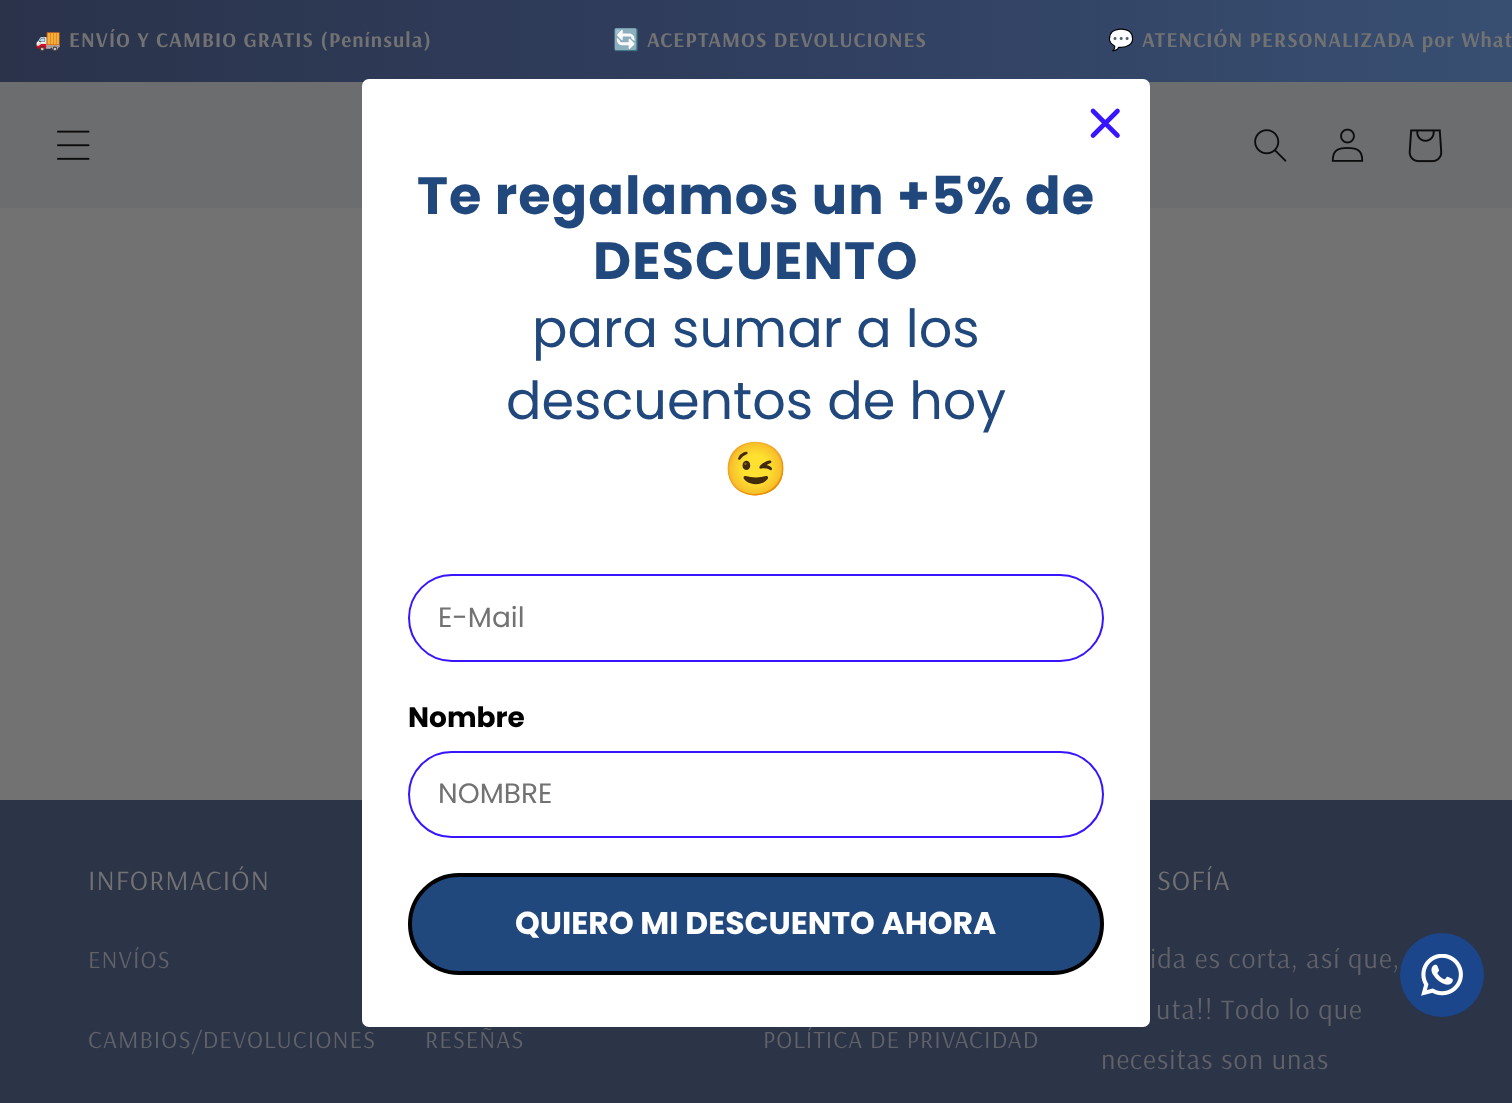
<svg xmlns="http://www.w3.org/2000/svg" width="1512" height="1103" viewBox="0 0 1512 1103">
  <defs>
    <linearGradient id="g1" gradientUnits="userSpaceOnUse" x1="0" y1="41" x2="1512" y2="41"><stop offset="0" stop-color="#2a334a"/><stop offset="0.5" stop-color="#303e5f"/><stop offset="1" stop-color="#384f72"/></linearGradient>
  </defs>
  <rect width="100%" height="100%" fill="#727272"/>
  <rect x="0" y="0" width="1512" height="82" fill="url(#g1)"/>
  <text x="35" y="47" font-family="Noto Color Emoji" font-size="21" font-weight="bold" letter-spacing="1.05" fill="#727272">🚚</text>
  <text x="69" y="47" font-family="Arsenal" font-size="21" font-weight="bold" letter-spacing="1.05" fill="#727272">ENVÍO Y CAMBIO GRATIS (Península)</text>
  <text x="613" y="47" font-family="Noto Color Emoji" font-size="21" font-weight="bold" letter-spacing="1.05" fill="#727272">🔄</text>
  <text x="647" y="47" font-family="Arsenal" font-size="21" font-weight="bold" letter-spacing="1.05" fill="#727272">ACEPTAMOS DEVOLUCIONES</text>
  <text x="1108" y="47" font-family="Noto Color Emoji" font-size="21" font-weight="bold" letter-spacing="1.05" fill="#727272">💬</text>
  <text x="1142" y="47" font-family="Arsenal" font-size="21" font-weight="bold" letter-spacing="1.05" fill="#727272">ATENCIÓN PERSONALIZADA por What</text>
  <rect x="0" y="82" width="1512" height="126" fill="#6c6d6f"/>
  <image x="57" y="130" width="33" height="30" href="img1.png"/>
  <image x="1254" y="129" width="33" height="33" href="img2.png"/>
  <image x="1331" y="128" width="33" height="34" href="img3.png"/>
  <image x="1408" y="129" width="35" height="34" href="img4.png"/>
  <rect x="0" y="800" width="1512" height="303" fill="#2c3448"/>
  <rect x="362" y="79" width="788" height="948" rx="7" fill="#ffffff"/>
  <path d="M1093 111L1117.5 135.5M1093 135.5L1117.5 111Z" fill="none" stroke="#3716ff" stroke-width="4.6" stroke-linecap="round" stroke-linejoin="round"/>
  <text x="417" y="214" font-family="Poppins" font-size="52.5" font-weight="bold" letter-spacing="1.05" fill="#21487d">Te regalamos un +5% de</text>
  <text x="593" y="279" font-family="Poppins" font-size="52.5" font-weight="bold" letter-spacing="1.05" fill="#21487d">DESCUENTO</text>
  <text x="532" y="347" font-family="Poppins" font-size="52.5" fill="#21487d">para sumar a los</text>
  <text x="506" y="419" font-family="Poppins" font-size="52.5" fill="#21487d">descuentos de hoy</text>
  <text x="723" y="487" font-family="Noto Color Emoji" font-size="52.5" letter-spacing="1.05" fill="#21487d">😉</text>
  <rect x="409" y="575" width="694" height="86" rx="43" fill="none" stroke="#3716ff" stroke-width="2"/>
  <text x="438" y="627" font-family="Poppins" font-size="28" fill="#727272">E-Mail</text>
  <text x="408" y="727" font-family="Poppins" font-size="28" font-weight="bold" fill="#000000">Nombre</text>
  <rect x="409" y="752" width="694" height="85" rx="42.5" fill="none" stroke="#3716ff" stroke-width="2"/>
  <text x="438" y="803" font-family="Poppins" font-size="28" fill="#727272">NOMBRE</text>
  <rect x="410" y="875" width="692" height="98" rx="49" fill="#21487d" stroke="#000000" stroke-width="4"/>
  <text x="515" y="934" font-family="Poppins" font-size="31.5" font-weight="bold" fill="#ffffff">QUIERO MI DESCUENTO AHORA</text>
  <text x="88" y="890" font-family="Arsenal" font-size="28" letter-spacing="1.05" fill="#727272">INFORMACIÓN</text>
  <text x="88" y="968" font-family="Arsenal" font-size="24.5" letter-spacing="1.05" fill="#606268">ENVÍOS</text>
  <text x="88" y="1048" font-family="Arsenal" font-size="24.5" letter-spacing="1.05" fill="#606268">CAMBIOS/DEVOLUCIONES</text>
  <text x="425" y="1048" font-family="Arsenal" font-size="24.5" letter-spacing="1.05" fill="#606268">RESEÑAS</text>
  <text x="763" y="1048" font-family="Arsenal" font-size="24.5" letter-spacing="1.05" fill="#606268">POLÍTICA DE PRIVACIDAD</text>
  <text x="1157" y="890" font-family="Arsenal" font-size="28" letter-spacing="1.05" fill="#727272">SOFÍA</text>
  <text x="1150" y="968" font-family="Arsenal" font-size="28" letter-spacing="1.05" fill="#606268">ida es corta, así que,</text>
  <text x="1156" y="1019" font-family="Arsenal" font-size="28" letter-spacing="1.05" fill="#606268">uta!! Todo lo que</text>
  <text x="1101" y="1069" font-family="Arsenal" font-size="28" letter-spacing="1.05" fill="#606268">necesitas son unas</text>
  <circle cx="1442" cy="975" r="42" fill="#1b468c"/>
  <image x="1421" y="954" width="42" height="42" href="img5.png"/>
</svg>
